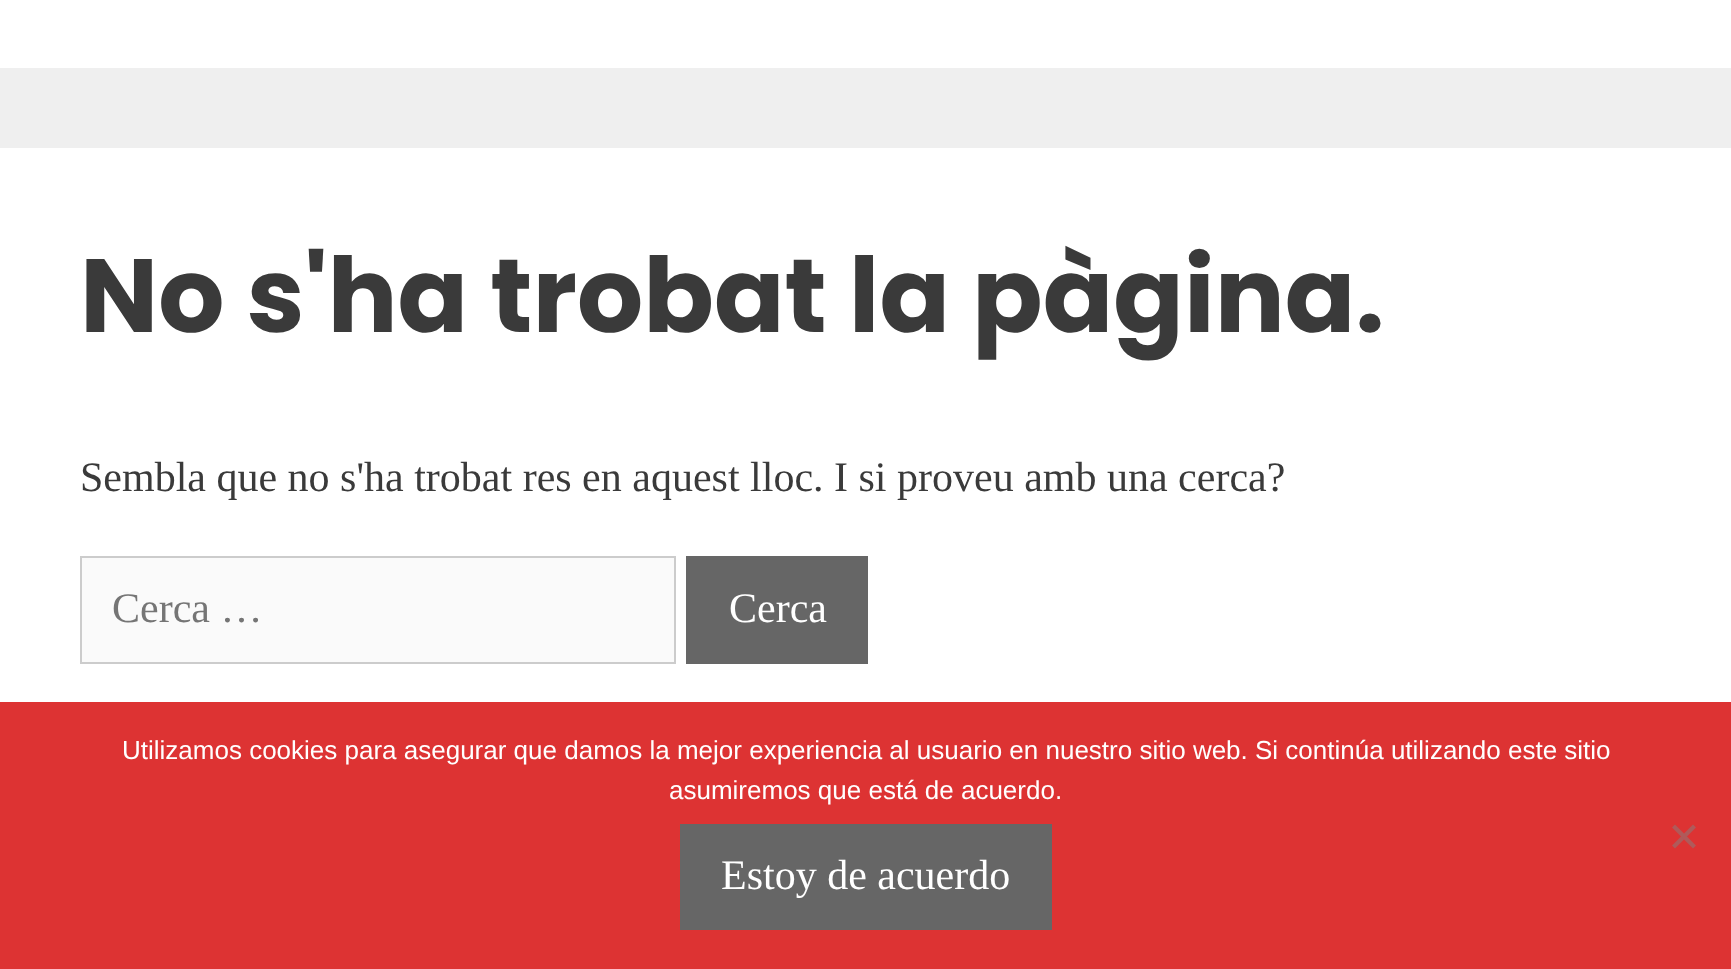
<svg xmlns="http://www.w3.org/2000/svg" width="1731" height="969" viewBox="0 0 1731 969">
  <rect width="100%" height="100%" fill="#efefef"/>
  <rect x="0" y="0" width="1731" height="68" fill="#ffffff"/>
  <rect x="0" y="148" width="1731" height="554" fill="#ffffff"/>
  <text x="80" y="332" font-family="Poppins" font-size="104" font-weight="bold" fill="#3a3a3a">No s'ha trobat la pàgina.</text>
  <text x="80" y="491" font-family="Liberation Serif" font-size="42" fill="#3a3a3a">Sembla que no s'ha trobat res en aquest lloc. I si proveu amb una cerca?</text>
  <rect x="81" y="557" width="594" height="106" fill="#fafafa" stroke="#cccccc" stroke-width="2"/>
  <text x="112" y="622" font-family="Liberation Serif" font-size="42" fill="#757575">Cerca …</text>
  <rect x="686" y="556" width="182" height="108" fill="#666666"/>
  <text x="729" y="622" font-family="Liberation Serif" font-size="42" fill="#ffffff">Cerca</text>
  <rect x="0" y="702" width="1731" height="267" fill="#dd3333"/>
  <text x="122" y="759" font-family="Liberation Sans" font-size="26" fill="#ffffff">Utilizamos cookies para asegurar que damos la mejor experiencia al usuario en nuestro sitio web. Si continúa utilizando este sitio</text>
  <text x="669" y="799" font-family="Liberation Sans" font-size="26" fill="#ffffff">asumiremos que está de acuerdo.</text>
  <path d="M1693 824.5L1696 827.5L1675 848.5L1672 845.5Z" fill="#af5a5a"/>
  <path d="M1672 827.5L1675 824.5L1696 845.5L1693 848.5Z" fill="#af5a5a"/>
  <rect x="680" y="824" width="372" height="106" fill="#666666"/>
  <text x="721" y="889" font-family="Liberation Serif" font-size="42" fill="#ffffff">Estoy de acuerdo</text>
</svg>
